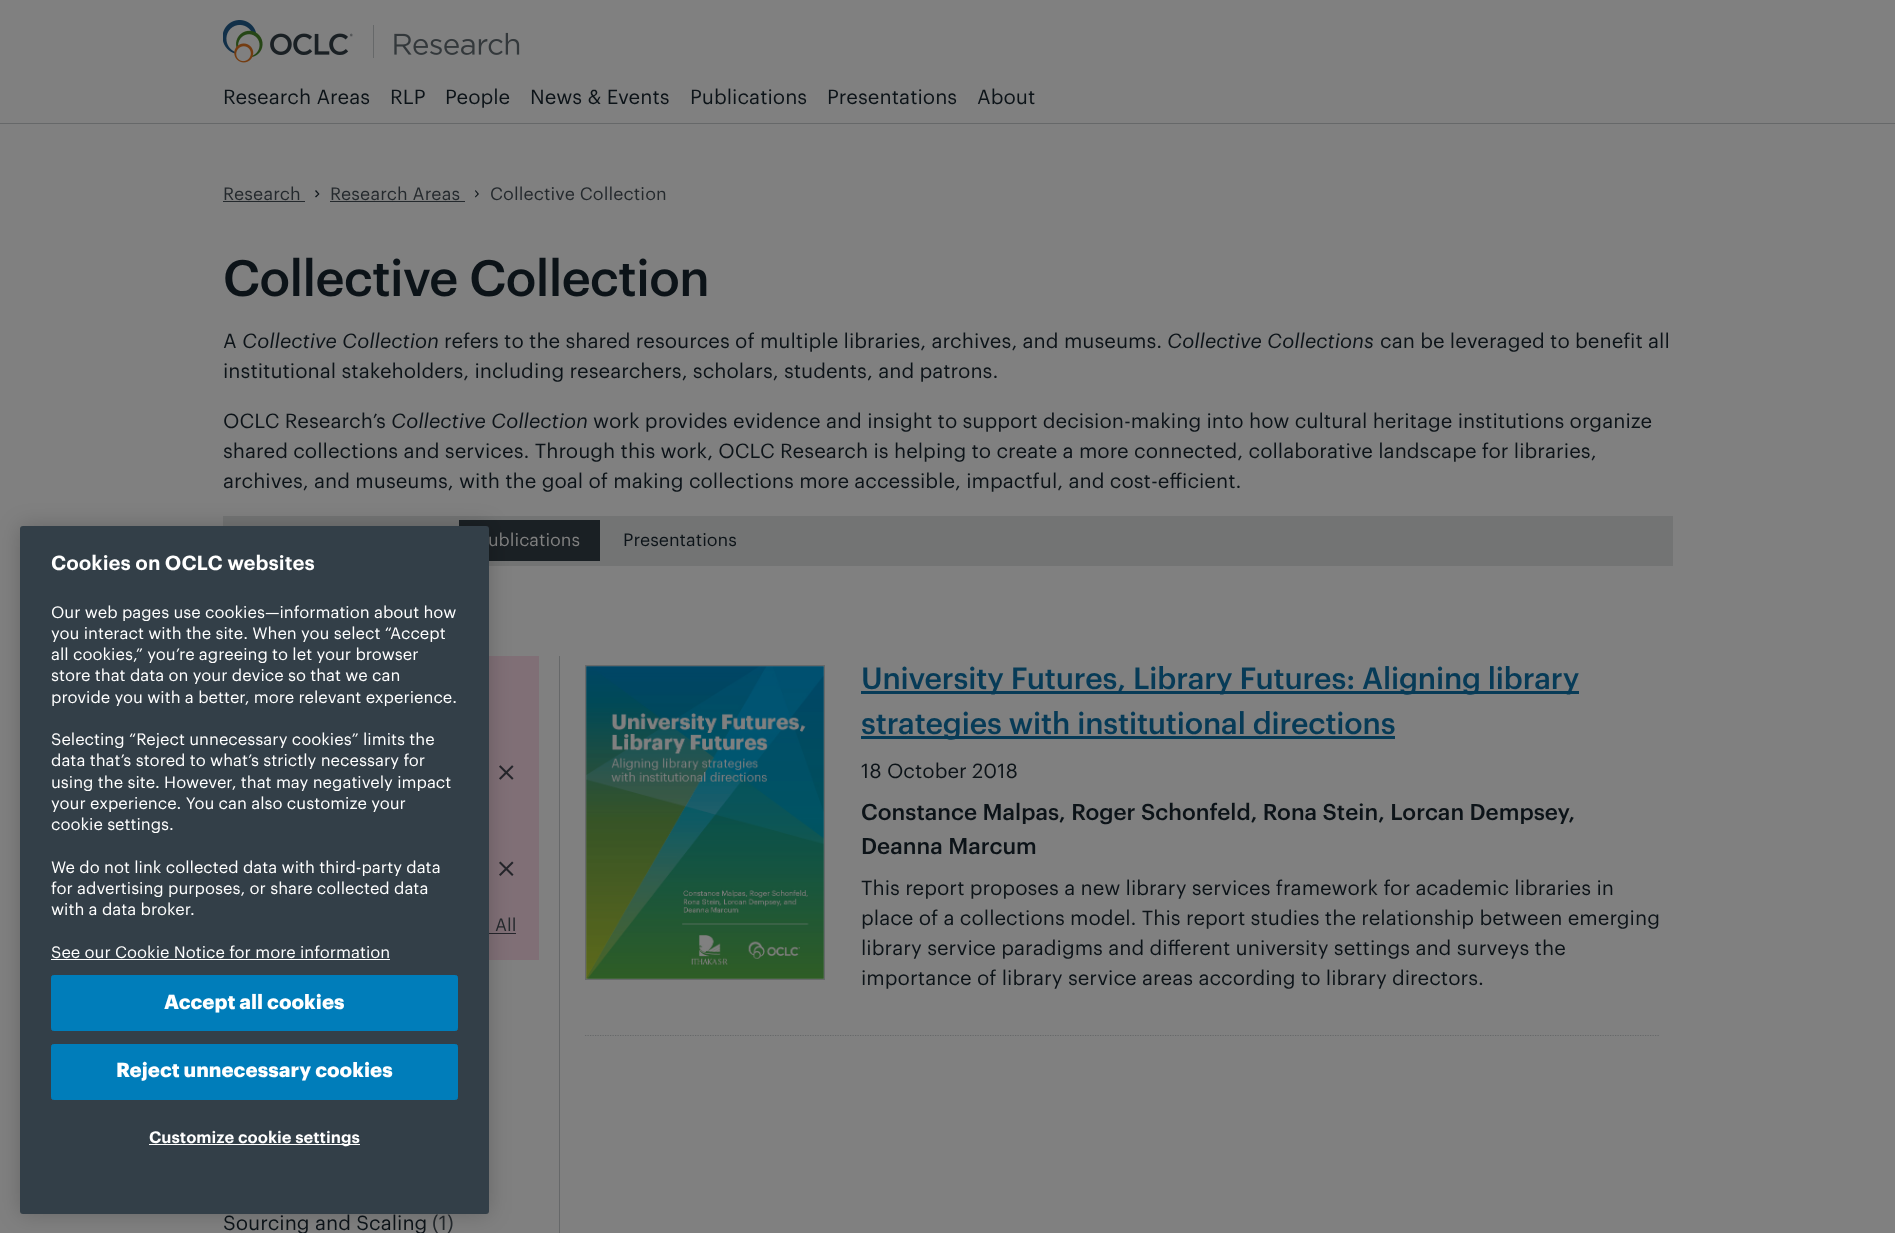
<svg xmlns="http://www.w3.org/2000/svg" width="1895" height="1233" viewBox="0 0 1895 1233">
  <defs>
    <filter id="blur1" x="-50%" y="-200%" width="200%" height="500%"><feGaussianBlur stdDeviation="11"/></filter>
  </defs>
  <rect width="100%" height="100%" fill="#808080"/>
  <rect x="0" y="123" width="1895" height="1" fill="#666869"/>
  <image x="223" y="20" width="130" height="43" href="img1.png"/>
  <rect x="373" y="25" width="1" height="33" fill="#666869"/>
  <image x="394" y="32" width="126" height="23" href="img2.png"/>
  <text x="223" y="104" font-family="Graphik" font-size="20" fill="#0c1318">Research Areas</text>
  <text x="390" y="104" font-family="Graphik" font-size="20" fill="#0c1318">RLP</text>
  <text x="445" y="104" font-family="Graphik" font-size="20" fill="#0c1318">People</text>
  <text x="530" y="104" font-family="Graphik" font-size="20" fill="#0c1318">News &amp; Events</text>
  <text x="690" y="104" font-family="Graphik" font-size="20" fill="#0c1318">Publications</text>
  <text x="827" y="104" font-family="Graphik" font-size="20" fill="#0c1318">Presentations</text>
  <text x="977" y="104" font-family="Graphik" font-size="20" fill="#0c1318">About</text>
  <text x="223" y="200" font-family="Graphik" font-size="17.5" letter-spacing="0.1" fill="#24292d">Research</text>
  <rect x="223" y="201" width="82" height="1" fill="#24292d"/>
  <path d="M316 190L319.5 194H318L315 191ZM319.5 194L316 197.5L315 196.5L318 194Z" fill="#0d1419"/>
  <text x="330" y="200" font-family="Graphik" font-size="17.5" letter-spacing="0.1" fill="#24292d">Research Areas</text>
  <rect x="330" y="201" width="135" height="1" fill="#24292d"/>
  <path d="M475.5 190L479 194H477.5L475 191ZM479 194L475.5 197.5L475 196.5L477.5 194Z" fill="#0d1419"/>
  <text x="490" y="200" font-family="Graphik" font-size="17.5" letter-spacing="0.1" fill="#24292d">Collective Collection</text>
  <text x="223" y="296" font-family="Graphik" font-size="50" font-weight="500" letter-spacing="-0.75" fill="#0c1318">Collective Collection</text>
  <text x="223" y="348" font-family="Graphik" font-size="20" fill="#0c1318">A</text>
  <text x="242" y="348" font-family="Graphik" font-size="20" font-style="italic" fill="#0c1318">Collective Collection</text>
  <text x="444" y="348" font-family="Graphik" font-size="20" fill="#0c1318">refers to the shared resources of multiple libraries, archives, and museums.</text>
  <text x="1167" y="348" font-family="Graphik" font-size="20" font-style="italic" fill="#0c1318">Collective Collections</text>
  <text x="1380" y="348" font-family="Graphik" font-size="20" fill="#0c1318">can be leveraged to benefit all</text>
  <text x="223" y="378" font-family="Graphik" font-size="20" fill="#0c1318">institutional stakeholders, including researchers, scholars, students, and patrons.</text>
  <text x="223" y="428" font-family="Graphik" font-size="20" fill="#0c1318">OCLC Research’s</text>
  <text x="391" y="428" font-family="Graphik" font-size="20" font-style="italic" fill="#0c1318">Collective Collection</text>
  <text x="593" y="428" font-family="Graphik" font-size="20" fill="#0c1318">work provides evidence and insight to support decision-making into how cultural heritage institutions organize</text>
  <text x="223" y="458" font-family="Graphik" font-size="20" fill="#0c1318">shared collections and services. Through this work, OCLC Research is helping to create a more connected, collaborative landscape for libraries,</text>
  <text x="223" y="488" font-family="Graphik" font-size="20" fill="#0c1318">archives, and museums, with the goal of making collections more accessible, impactful, and cost-efficient.</text>
  <rect x="223" y="516" width="1450" height="50" fill="#737474"/>
  <rect x="459" y="520" width="141" height="41" fill="#1a2024"/>
  <text x="488" y="546" font-family="Graphik" font-size="17.5" fill="#808080">ublications</text>
  <text x="623" y="546" font-family="Graphik" font-size="17.5" fill="#0c1318">Presentations</text>
  <path d="M585 1035.5H1660" fill="none" stroke="#666869" stroke-width="1.2" stroke-dasharray="1.25 1.25"/>
  <rect x="585.5" y="665.5" width="239" height="314" fill="none" stroke="#666869"/>
  <image x="586" y="666" width="238" height="313" href="img3.png"/>
  <rect x="861" y="691" width="718" height="3" fill="#073b57"/>
  <text x="861" y="689" font-family="Graphik" font-size="30" font-weight="500" letter-spacing="-0.25" fill="#073b57">University Futures, Library Futures: Aligning library</text>
  <rect x="861" y="736" width="534" height="3" fill="#073b57"/>
  <text x="861" y="734" font-family="Graphik" font-size="30" font-weight="500" letter-spacing="-0.25" fill="#073b57">strategies with institutional directions</text>
  <text x="861" y="778" font-family="Graphik" font-size="20" fill="#0c1318">18 October 2018</text>
  <text x="861" y="820" font-family="Graphik" font-size="22.5" font-weight="500" letter-spacing="-0.05" fill="#0c1318">Constance Malpas, Roger Schonfeld, Rona Stein, Lorcan Dempsey,</text>
  <text x="861" y="854" font-family="Graphik" font-size="22.5" font-weight="500" letter-spacing="-0.05" fill="#0c1318">Deanna Marcum</text>
  <text x="861" y="895" font-family="Graphik" font-size="20" fill="#0c1318">This report proposes a new library services framework for academic libraries in</text>
  <text x="861" y="925" font-family="Graphik" font-size="20" fill="#0c1318">place of a collections model. This report studies the relationship between emerging</text>
  <text x="861" y="955" font-family="Graphik" font-size="20" fill="#0c1318">library service paradigms and different university settings and surveys the</text>
  <text x="861" y="985" font-family="Graphik" font-size="20" fill="#0c1318">importance of library service areas according to library directors.</text>
  <rect x="559" y="656" width="1" height="577" fill="#666869"/>
  <rect x="489" y="656" width="50" height="304" fill="#806f76"/>
  <image x="499" y="765" width="15" height="15" href="img4.png"/>
  <image x="499" y="861" width="15" height="15" href="img5.png"/>
  <text x="495" y="931" font-family="Graphik" font-size="17.5" fill="#24292d">All</text>
  <rect x="489" y="933" width="27" height="1" fill="#24252b"/>
  <text x="223" y="1230" font-family="Graphik" font-size="20" fill="#0c1318">Sourcing and Scaling</text>
  <text x="432" y="1230" font-family="Graphik" font-size="20" fill="#24292d">(1)</text>
  <rect x="20" y="526" width="469" height="688" rx="3" fill="#000000" fill-opacity="0.2" filter="url(#blur1)"/>
  <rect x="20" y="526" width="469" height="688" rx="3" fill="#333f48"/>
  <text x="51" y="570" font-family="Graphik" font-size="20" font-weight="600" fill="#ffffff">Cookies on OCLC websites</text>
  <text x="51" y="618" font-family="Graphik" font-size="16.25" fill="#ffffff">Our web pages use cookies—information about how</text>
  <text x="51" y="639" font-family="Graphik" font-size="16.25" fill="#ffffff">you interact with the site. When you select “Accept</text>
  <text x="51" y="660" font-family="Graphik" font-size="16.25" fill="#ffffff">all cookies,” you’re agreeing to let your browser</text>
  <text x="51" y="681" font-family="Graphik" font-size="16.25" fill="#ffffff">store that data on your device so that we can</text>
  <text x="51" y="703" font-family="Graphik" font-size="16.25" fill="#ffffff">provide you with a better, more relevant experience.</text>
  <text x="51" y="745" font-family="Graphik" font-size="16.25" fill="#ffffff">Selecting “Reject unnecessary cookies” limits the</text>
  <text x="51" y="766" font-family="Graphik" font-size="16.25" fill="#ffffff">data that’s stored to what’s strictly necessary for</text>
  <text x="51" y="788" font-family="Graphik" font-size="16.25" fill="#ffffff">using the site. However, that may negatively impact</text>
  <text x="51" y="809" font-family="Graphik" font-size="16.25" fill="#ffffff">your experience. You can also customize your</text>
  <text x="51" y="830" font-family="Graphik" font-size="16.25" fill="#ffffff">cookie settings.</text>
  <text x="51" y="873" font-family="Graphik" font-size="16.25" fill="#ffffff">We do not link collected data with third-party data</text>
  <text x="51" y="894" font-family="Graphik" font-size="16.25" fill="#ffffff">for advertising purposes, or share collected data</text>
  <text x="51" y="915" font-family="Graphik" font-size="16.25" fill="#ffffff">with a data broker.</text>
  <text x="51" y="958" font-family="Graphik" font-size="16.25" fill="#ffffff">See our Cookie Notice for more information</text>
  <rect x="51" y="959" width="339" height="1" fill="#ffffff"/>
  <rect x="51.5" y="975.5" width="406" height="55" rx="2" fill="#007dba" stroke="#007dba"/>
  <text x="164" y="1009" font-family="Graphik" font-size="20" font-weight="bold" fill="#ffffff">Accept all cookies</text>
  <rect x="51.5" y="1044.5" width="406" height="55" rx="2" fill="#007dba" stroke="#007dba"/>
  <text x="116" y="1077" font-family="Graphik" font-size="20" font-weight="bold" fill="#ffffff">Reject unnecessary cookies</text>
  <rect x="149" y="1144" width="211" height="1" fill="#ffffff"/>
  <text x="149" y="1143" font-family="Graphik" font-size="16.25" font-weight="600" fill="#ffffff">Customize cookie settings</text>
</svg>
